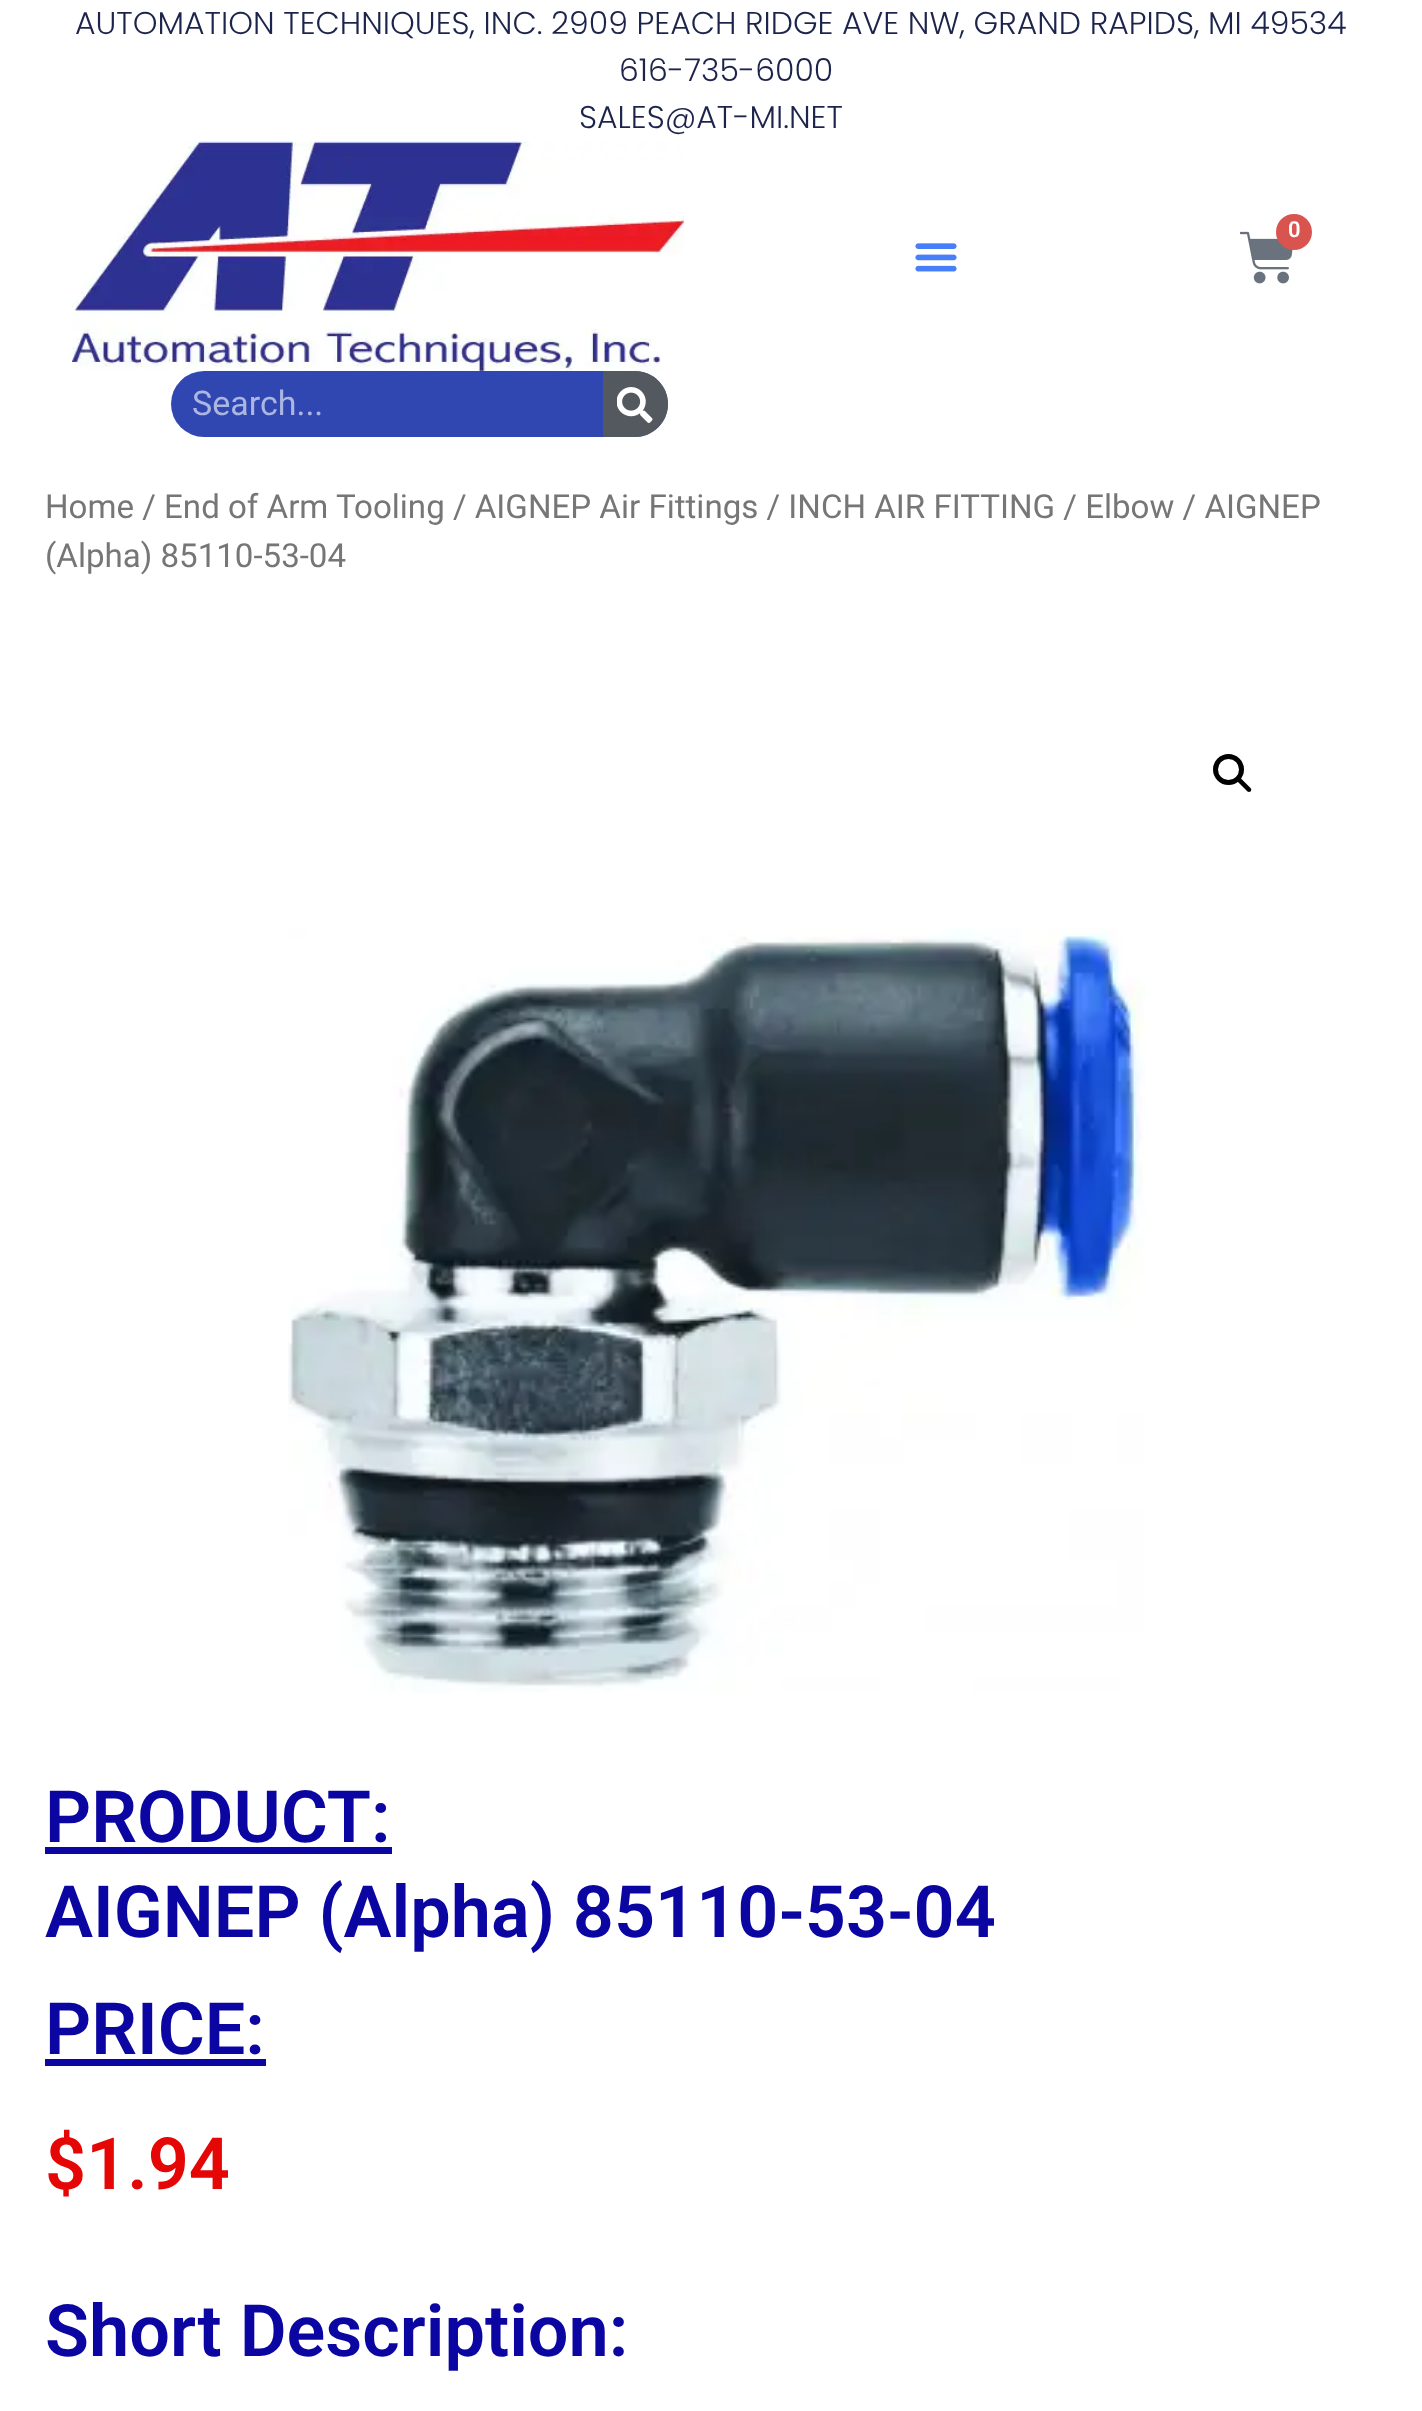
<svg xmlns="http://www.w3.org/2000/svg" width="1422" height="2411" viewBox="0 0 1422 2411">
  <rect width="100%" height="100%" fill="#ffffff"/>
  <text x="75" y="34" font-family="Poppins" font-size="31.5" font-weight="300" fill="#1c244b">AUTOMATION TECHNIQUES, INC. 2909 PEACH RIDGE AVE NW, GRAND RAPIDS, MI 49534</text>
  <text x="619" y="81" font-family="Poppins" font-size="31.5" font-weight="300" fill="#1c244b">616-735-6000</text>
  <text x="579" y="128" font-family="Poppins" font-size="31.5" font-weight="300" fill="#1c244b">SALES@AT-MI.NET</text>
  <image x="72" y="141" width="612" height="231" href="img1.png"/>
  <image x="1240" y="231" width="53" height="53" href="img2.png"/>
  <circle cx="1294" cy="232" r="18" fill="#d9534f"/>
  <text x="1288" y="237" font-family="Roboto" font-size="22" font-weight="600" fill="#ffffff">0</text>
  <image x="915" y="243" width="42" height="29" href="img3.png"/>
  <rect x="171" y="371" width="497" height="66" rx="33" fill="#0622a2" fill-opacity="0.83"/>
  <text x="192" y="415" font-family="Roboto" font-size="34" fill="#acb6e0">Search...</text>
  <path d="M603 371H635C653 371 668 386 668 404C668 422 653 437 635 437H603Z" fill="#54595f"/>
  <image x="617" y="387" width="36" height="36" href="img4.png"/>
  <text x="45" y="518" font-family="Roboto" font-size="33.1" fill="#767676">Home / End of Arm Tooling / AIGNEP Air Fittings / INCH AIR FITTING / Elbow / AIGNEP</text>
  <text x="45" y="567" font-family="Roboto" font-size="33.1" fill="#767676">(Alpha) 85110-53-04</text>
  <circle cx="1228.5" cy="769.5" r="13" fill="none" stroke="#000000" stroke-width="5"/>
  <path d="M1238 778.5C1239 777.5 1240 777.5 1241 778.5L1250.5 788C1251.5 789 1251.5 790.5 1250.5 791.5C1249.5 792 1248.5 792 1247.5 791.5L1238 782C1237 781 1237 779.5 1238 778.5Z" fill="#000000"/>
  <image x="288" y="928" width="857" height="765" href="img5.png"/>
  <text x="45" y="1842" font-family="Roboto" font-size="72" font-weight="600" fill="#0b06a2">PRODUCT:</text>
  <rect x="45" y="1847" width="347" height="7" fill="#0b06a2"/>
  <text x="45" y="1937" font-family="Roboto" font-size="72" font-weight="600" fill="#0b06a2">AIGNEP (Alpha) 85110-53-04</text>
  <text x="45" y="2054" font-family="Roboto" font-size="72" font-weight="600" fill="#0b06a2">PRICE:</text>
  <rect x="45" y="2059" width="221" height="7" fill="#0b06a2"/>
  <text x="45" y="2189" font-family="Roboto" font-size="72" font-weight="600" fill="#e50606">$1.94</text>
  <text x="45" y="2356" font-family="Roboto" font-size="72" font-weight="600" fill="#0b06a2">Short Description:</text>
</svg>
